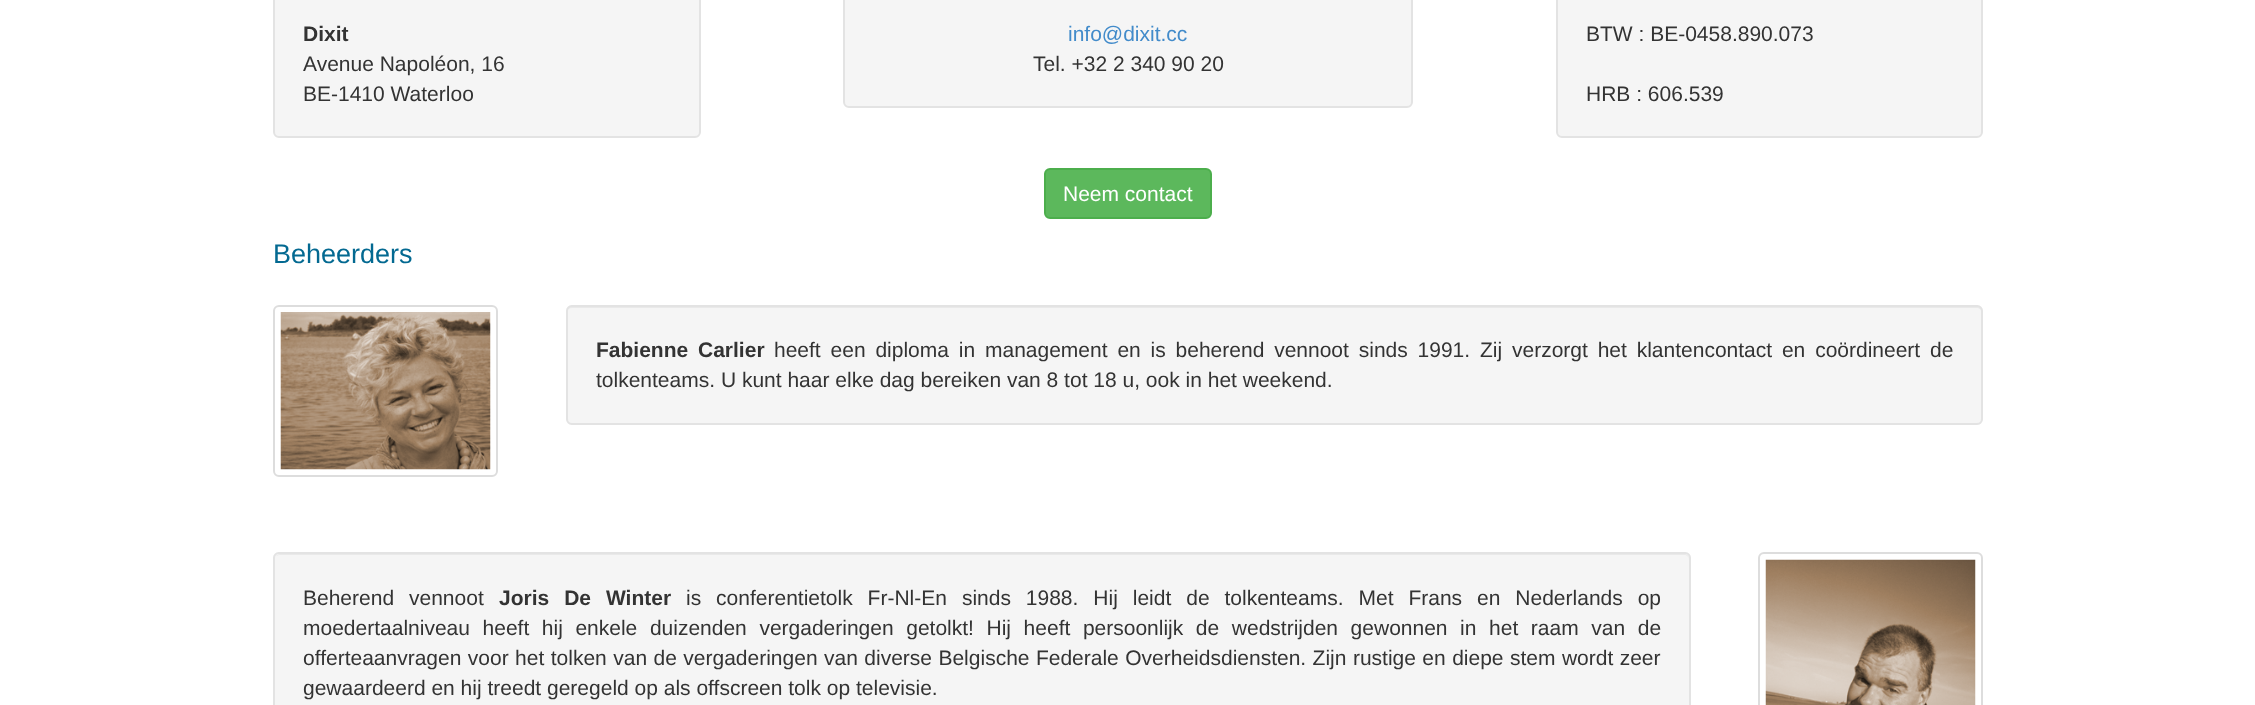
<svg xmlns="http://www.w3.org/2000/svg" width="2255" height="705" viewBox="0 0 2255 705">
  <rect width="100%" height="100%" fill="#ffffff"/>
  <rect x="274" y="-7" width="426" height="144" rx="5" fill="#f5f5f5" stroke="#e3e3e3" stroke-width="2"/>
  <text x="303" y="41" font-family="Liberation Sans" font-size="21" font-weight="bold" fill="#333333">Dixit</text>
  <text x="303" y="71" font-family="Liberation Sans" font-size="21" fill="#333333">Avenue Napoléon, 16</text>
  <text x="303" y="101" font-family="Liberation Sans" font-size="21" fill="#333333">BE-1410 Waterloo</text>
  <rect x="844" y="-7" width="568" height="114" rx="5" fill="#f5f5f5" stroke="#e3e3e3" stroke-width="2"/>
  <text x="1068" y="41" font-family="Liberation Sans" font-size="21" fill="#428bca">info@dixit.cc</text>
  <text x="1033" y="71" font-family="Liberation Sans" font-size="21" fill="#333333">Tel. +32 2 340 90 20</text>
  <rect x="1557" y="-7" width="425" height="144" rx="5" fill="#f5f5f5" stroke="#e3e3e3" stroke-width="2"/>
  <text x="1586" y="41" font-family="Liberation Sans" font-size="21" fill="#333333">BTW : BE-0458.890.073</text>
  <text x="1586" y="101" font-family="Liberation Sans" font-size="21" fill="#333333">HRB : 606.539</text>
  <rect x="1045" y="169" width="166" height="49" rx="5" fill="#5cb85c" stroke="#4cae4c" stroke-width="2"/>
  <text x="1063" y="201" font-family="Liberation Sans" font-size="21" fill="#ffffff">Neem contact</text>
  <text x="273" y="263" font-family="Liberation Sans" font-size="27" fill="#036991">Beheerders</text>
  <rect x="274" y="306" width="223" height="170" rx="5" fill="none" stroke="#dddddd" stroke-width="2"/>
  <image x="280" y="312" width="211" height="158" href="img1.png"/>
  <rect x="566" y="305" width="1417" height="120" rx="6" fill="#f5f5f5"/>
  <path d="M572 308H1977C1979 308 1982 310 1982 312C1982 309 1980 306 1977 306H572C569 306 567 309 567 312C567 310 569 308 572 308Z" fill="#e9e9e9"/>
  <rect x="567" y="306" width="1415" height="118" rx="5" fill="none" stroke="#e3e3e3" stroke-width="2"/>
  <text x="596" y="357" word-spacing="4" font-family="Liberation Sans" font-size="21" font-weight="bold" fill="#333333">Fabienne Carlier</text>
  <text x="774" y="357" word-spacing="4" font-family="Liberation Sans" font-size="21" fill="#333333">heeft een diploma in management en is beherend vennoot sinds 1991. Zij verzorgt het klantencontact en coördineert de</text>
  <text x="596" y="387" font-family="Liberation Sans" font-size="21" fill="#333333">tolkenteams. U kunt haar elke dag bereiken van 8 tot 18 u, ook in het weekend.</text>
  <rect x="273" y="552" width="1418" height="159" rx="6" fill="#f5f5f5"/>
  <path d="M279 555H1684C1687 555 1689 557 1689 560V559C1689 556 1687 554 1684 554H280C278 554 277 555 276 556Z" fill="#e9e9e9"/>
  <rect x="274" y="553" width="1416" height="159" rx="5" fill="none" stroke="#e3e3e3" stroke-width="2"/>
  <text x="303" y="605" word-spacing="9.1" font-family="Liberation Sans" font-size="21" fill="#333333">Beherend vennoot</text>
  <text x="499" y="605" word-spacing="9.1" font-family="Liberation Sans" font-size="21" font-weight="bold" fill="#333333">Joris De Winter</text>
  <text x="686" y="605" word-spacing="9.1" font-family="Liberation Sans" font-size="21" fill="#333333">is conferentietolk Fr-Nl-En sinds 1988. Hij leidt de tolkenteams. Met Frans en Nederlands op</text>
  <text x="303" y="635" word-spacing="6.75" font-family="Liberation Sans" font-size="21" fill="#333333">moedertaalniveau heeft hij enkele duizenden vergaderingen getolkt! Hij heeft persoonlijk de wedstrijden gewonnen in het raam van de</text>
  <text x="303" y="665" word-spacing="0.6" font-family="Liberation Sans" font-size="21" fill="#333333">offerteaanvragen voor het tolken van de vergaderingen van diverse Belgische Federale Overheidsdiensten. Zijn rustige en diepe stem wordt zeer</text>
  <text x="303" y="695" font-family="Liberation Sans" font-size="21" fill="#333333">gewaardeerd en hij treedt geregeld op als offscreen tolk op televisie.</text>
  <rect x="1759" y="553" width="223" height="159" rx="5" fill="none" stroke="#dddddd" stroke-width="2"/>
  <image x="1765" y="559" width="211" height="146" href="img2.png"/>
</svg>
